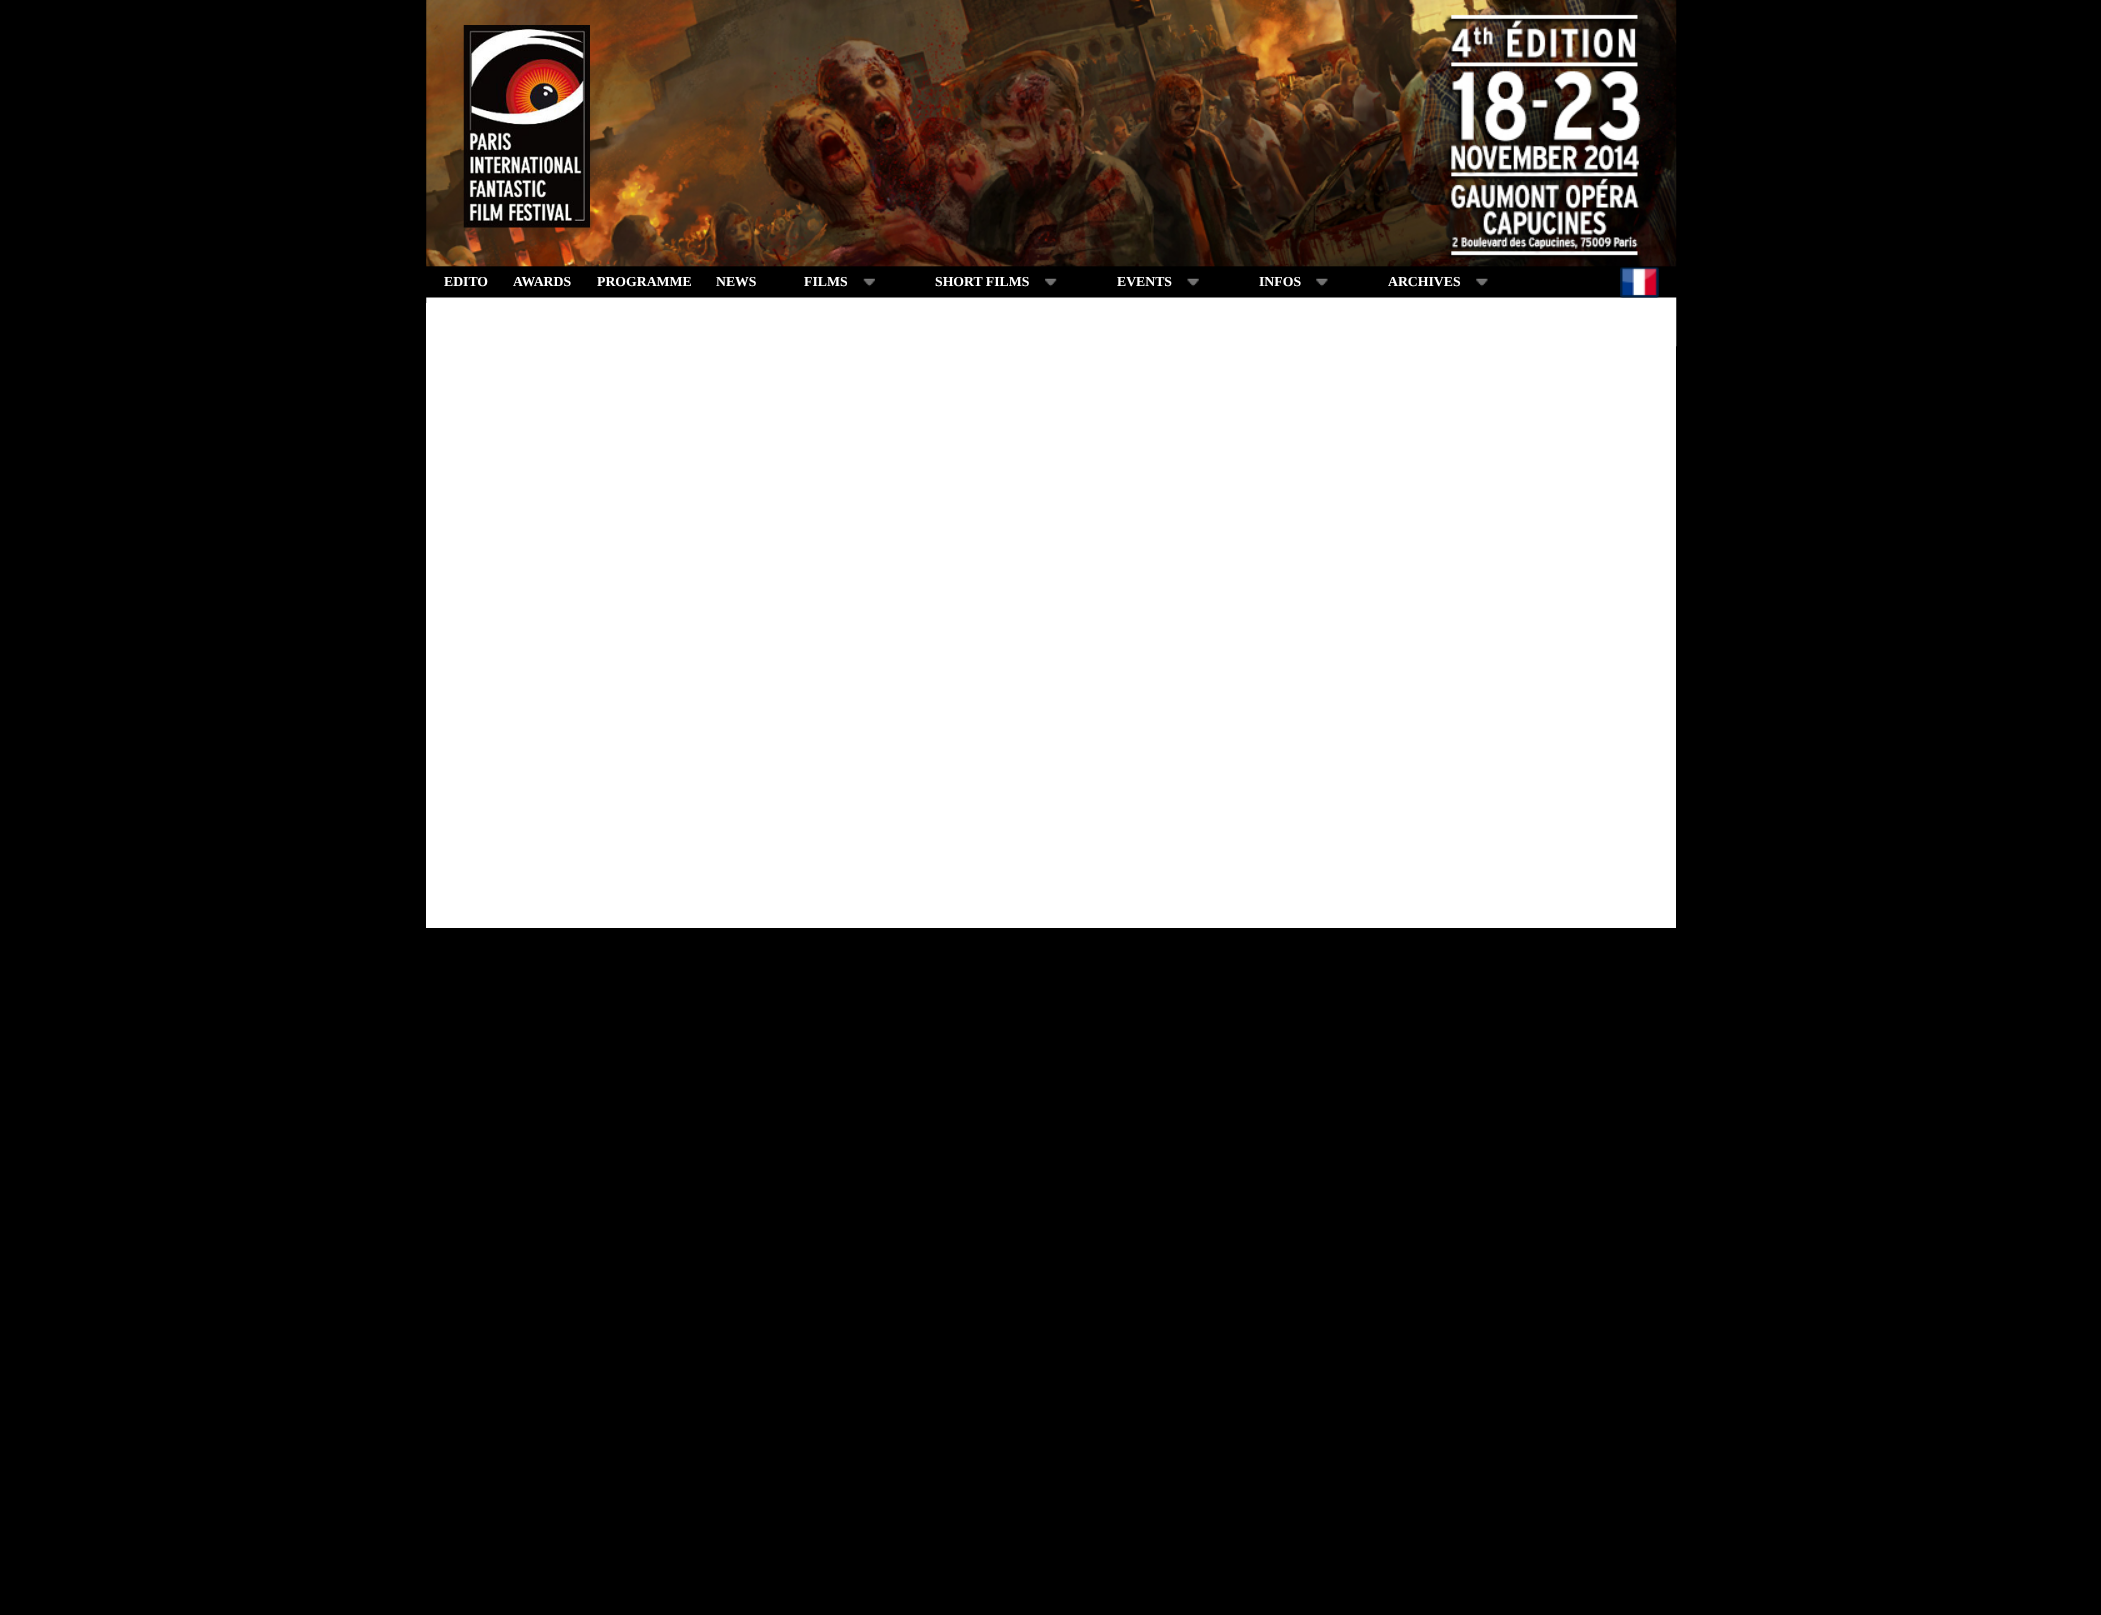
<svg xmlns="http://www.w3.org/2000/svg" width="2101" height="1615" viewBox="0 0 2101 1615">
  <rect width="100%" height="100%" fill="#000000"/>
  <image x="426" y="0" width="1251" height="347" href="img1.png"/>
  <image x="463" y="25" width="127" height="203" href="img2.png"/>
  <text x="444" y="286" font-family="Liberation Serif" font-size="13.75" font-weight="bold" fill="#ffffff">EDITO</text>
  <text x="513" y="286" font-family="Liberation Serif" font-size="13.75" font-weight="bold" fill="#ffffff">AWARDS</text>
  <text x="597" y="286" font-family="Liberation Serif" font-size="13.75" font-weight="bold" fill="#ffffff">PROGRAMME</text>
  <text x="716" y="286" font-family="Liberation Serif" font-size="13.75" font-weight="bold" fill="#ffffff">NEWS</text>
  <text x="804" y="286" font-family="Liberation Serif" font-size="13.75" font-weight="bold" fill="#ffffff">FILMS</text>
  <image x="863" y="278" width="12" height="9" href="img3.png"/>
  <text x="935" y="286" font-family="Liberation Serif" font-size="13.75" font-weight="bold" fill="#ffffff">SHORT FILMS</text>
  <image x="1045" y="278" width="12" height="9" href="img4.png"/>
  <text x="1117" y="286" font-family="Liberation Serif" font-size="13.75" font-weight="bold" fill="#ffffff">EVENTS</text>
  <image x="1187" y="278" width="12" height="9" href="img5.png"/>
  <text x="1259" y="286" font-family="Liberation Serif" font-size="13.75" font-weight="bold" fill="#ffffff">INFOS</text>
  <image x="1316" y="278" width="12" height="9" href="img6.png"/>
  <text x="1388" y="286" font-family="Liberation Serif" font-size="13.75" font-weight="bold" fill="#ffffff">ARCHIVES</text>
  <image x="1476" y="278" width="12" height="9" href="img6.png"/>
  <image x="1620" y="267" width="39" height="31" href="img7.png"/>
  <rect x="426" y="303" width="1250" height="625" fill="#ffffff"/>
</svg>
